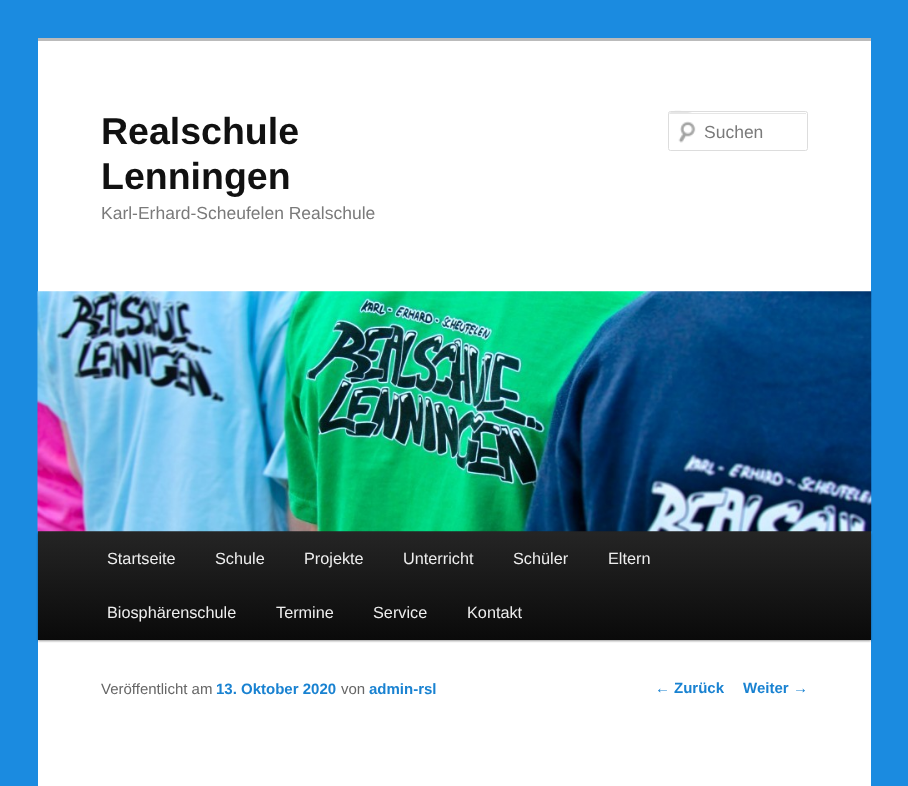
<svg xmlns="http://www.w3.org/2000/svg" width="908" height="786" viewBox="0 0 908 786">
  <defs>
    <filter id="blur1" x="-50%" y="-200%" width="200%" height="500%"><feGaussianBlur stdDeviation="1"/></filter>
    <linearGradient id="g1" gradientUnits="userSpaceOnUse" x1="454" y1="531" x2="454" y2="640"><stop offset="0" stop-color="#252525"/><stop offset="1" stop-color="#0a0a0a"/></linearGradient>
  </defs>
  <rect width="100%" height="100%" fill="#1b8be0"/>
  <rect x="38" y="41" width="833" height="745" fill="#ffffff"/>
  <rect x="38" y="38" width="833" height="3" fill="#bbbbbb"/>
  <text x="101" y="144" font-family="Liberation Sans" font-size="37.5" font-weight="bold" fill="#111111">Realschule</text>
  <text x="101" y="189" font-family="Liberation Sans" font-size="37.5" font-weight="bold" fill="#111111">Lenningen</text>
  <text x="101" y="219" font-family="Liberation Sans" font-size="17.5" fill="#7a7a7a">Karl-Erhard-Scheufelen Realschule</text>
  <image x="678" y="121" width="18" height="22" href="img1.png"/>
  <path d="M670 114H805C806 114 806 114 806 115V113H692C692 113 669 107 669 115C669 114 669 114 670 114Z" fill="#e6e6e6"/>
  <rect x="668.5" y="111.5" width="139" height="39" rx="2" fill="none" stroke="#dddddd"/>
  <text x="704" y="138" font-family="Liberation Sans" font-size="17.5" fill="#7a7a7a">Suchen</text>
  <rect x="38" y="533" width="833" height="108" fill="#000000" fill-opacity="0.4" filter="url(#blur1)"/>
  <rect x="38" y="531" width="833" height="109" fill="url(#g1)"/>
  <image x="37" y="291" width="835" height="241" href="img2.png"/>
  <text x="107" y="564" font-family="Liberation Sans" font-size="16.25" fill="#eeeeee">Startseite</text>
  <text x="215" y="564" font-family="Liberation Sans" font-size="16.25" fill="#eeeeee">Schule</text>
  <text x="304" y="564" font-family="Liberation Sans" font-size="16.25" fill="#eeeeee">Projekte</text>
  <text x="403" y="564" font-family="Liberation Sans" font-size="16.25" fill="#eeeeee">Unterricht</text>
  <text x="513" y="564" font-family="Liberation Sans" font-size="16.25" fill="#eeeeee">Schüler</text>
  <text x="608" y="564" font-family="Liberation Sans" font-size="16.25" fill="#eeeeee">Eltern</text>
  <text x="107" y="618" font-family="Liberation Sans" font-size="16.25" fill="#eeeeee">Biosphärenschule</text>
  <text x="276" y="618" font-family="Liberation Sans" font-size="16.25" fill="#eeeeee">Termine</text>
  <text x="373" y="618" font-family="Liberation Sans" font-size="16.25" fill="#eeeeee">Service</text>
  <text x="467" y="618" font-family="Liberation Sans" font-size="16.25" fill="#eeeeee">Kontakt</text>
  <text x="101" y="694" font-family="Liberation Sans" font-size="15" fill="#666666">Veröffentlicht am</text>
  <text x="216" y="694" font-family="Liberation Sans" font-size="15" font-weight="bold" fill="#1982d1">13. Oktober 2020</text>
  <text x="341" y="694" font-family="Liberation Sans" font-size="15" fill="#666666">von</text>
  <text x="369" y="694" font-family="Liberation Sans" font-size="15" font-weight="bold" fill="#1982d1">admin-rsl</text>
  <text x="655" y="693" font-family="Liberation Sans" font-size="15" fill="#1982d1">←</text>
  <text x="674" y="693" font-family="Liberation Sans" font-size="15" font-weight="bold" fill="#1982d1">Zurück</text>
  <text x="743" y="693" font-family="Liberation Sans" font-size="15" font-weight="bold" fill="#1982d1">Weiter</text>
  <text x="793" y="693" font-family="Liberation Sans" font-size="15" fill="#1982d1">→</text>
</svg>
